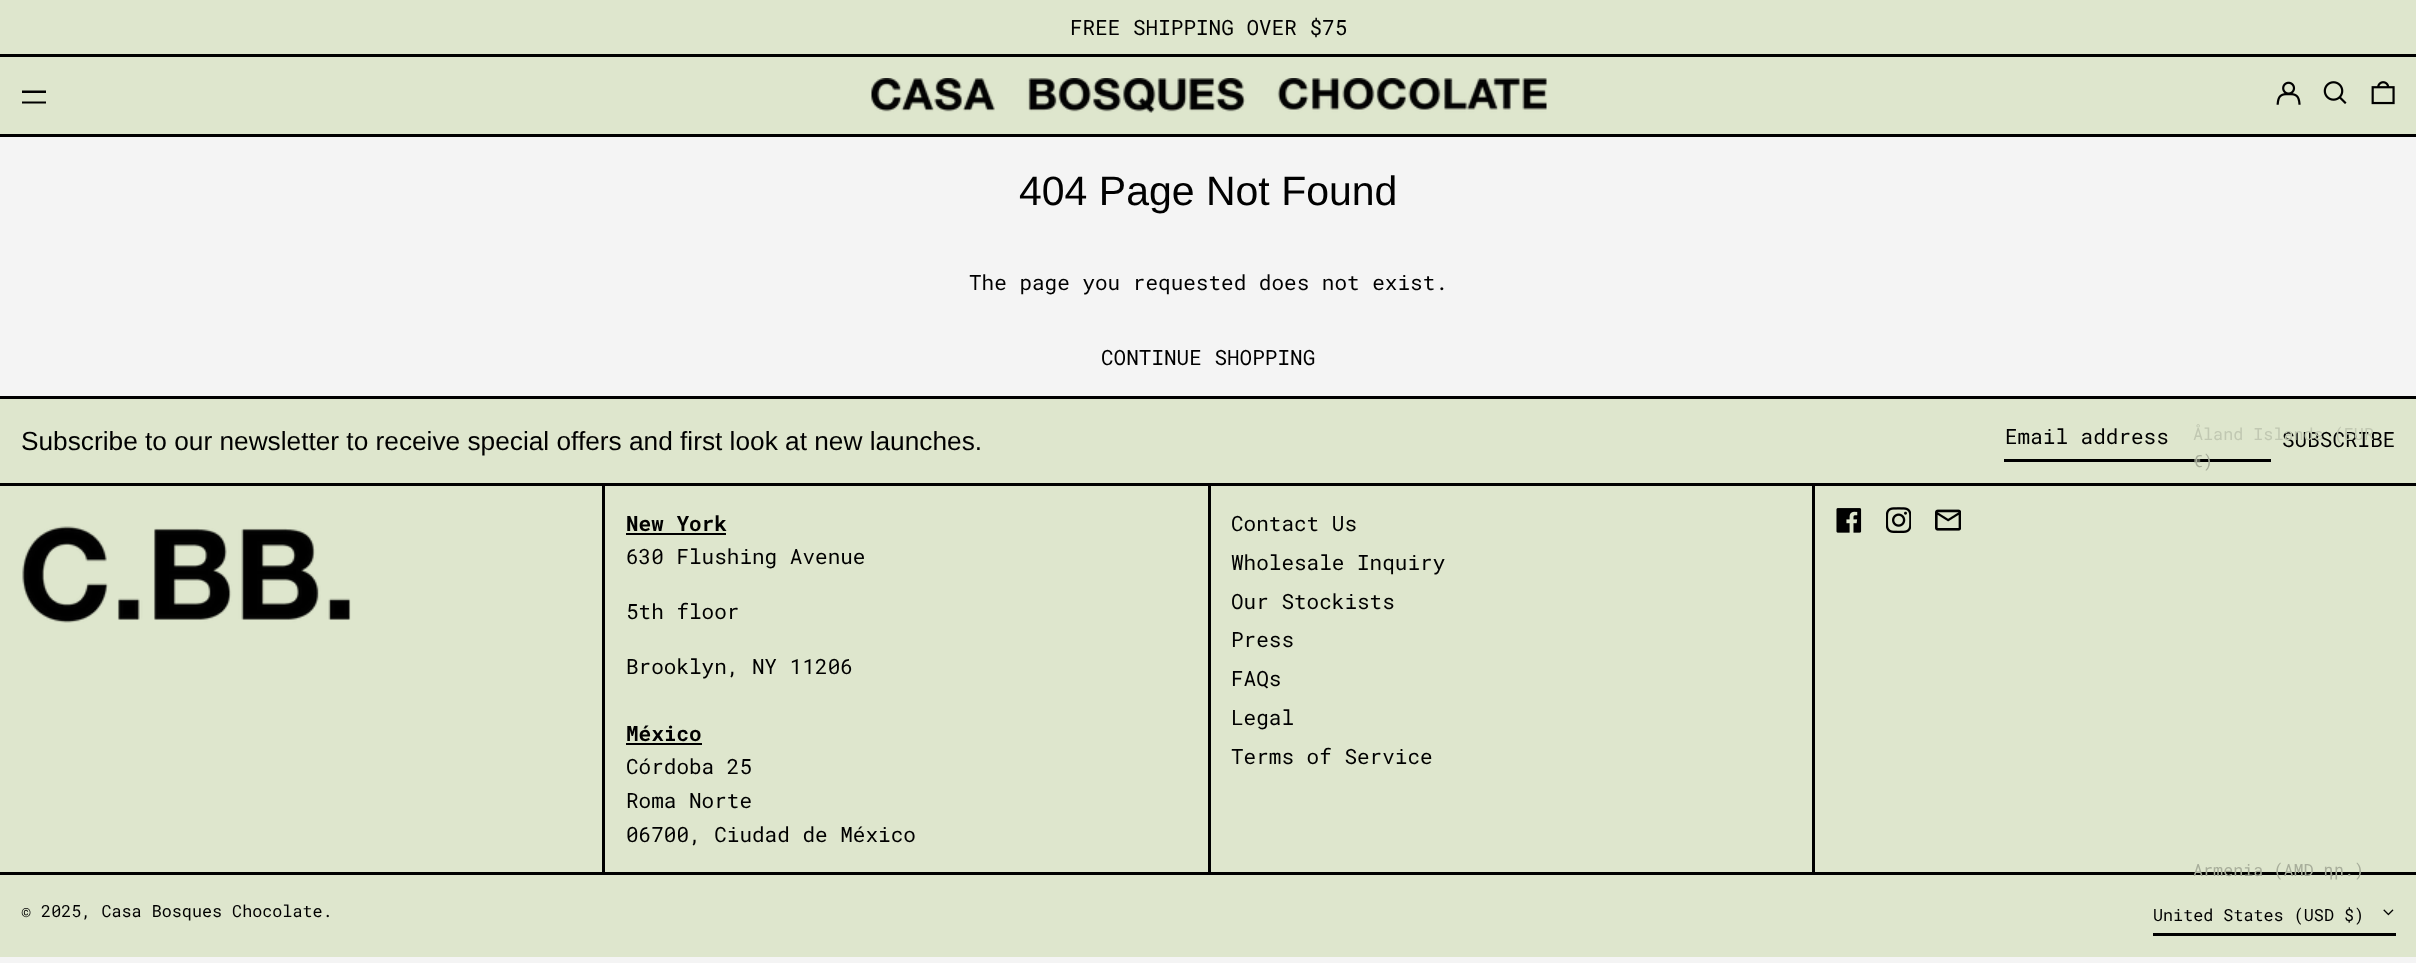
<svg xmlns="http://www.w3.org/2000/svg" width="2416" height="963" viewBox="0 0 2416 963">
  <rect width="100%" height="100%" fill="#f4f4f4"/>
  <rect x="0" y="0" width="2416" height="54" fill="#dee6cd"/>
  <rect x="0" y="54" width="2416" height="3" fill="#000000"/>
  <text x="1070" y="35" font-family="Roboto Mono" font-size="21" fill="#000000">FREE SHIPPING OVER $75</text>
  <rect x="0" y="57" width="2416" height="77" fill="#dee6cd"/>
  <rect x="0" y="134" width="2416" height="3" fill="#000000"/>
  <path d="M46 101.5V103.5H22V101.5ZM46 90.5V93H22V90.5Z" fill="#000000" fill-rule="evenodd"/>
  <image x="871" y="78" width="676" height="35" href="img1.png"/>
  <image x="2276" y="81" width="25" height="24" href="img2.png"/>
  <image x="2323" y="81" width="24" height="23" href="img3.png"/>
  <image x="2371" y="81" width="24" height="24" href="img4.png"/>
  <text x="1019" y="205" font-family="Liberation Sans" font-size="41" fill="#000000">404 Page Not Found</text>
  <text x="969" y="290" font-family="Roboto Mono" font-size="21" fill="#000000">The page you requested does not exist.</text>
  <text x="1101" y="365" font-family="Roboto Mono" font-size="21" fill="#000000">CONTINUE SHOPPING</text>
  <rect x="0" y="399" width="2416" height="558" fill="#dee6cd"/>
  <rect x="0" y="872" width="2416" height="3" fill="#000000"/>
  <text x="21" y="917" font-family="Roboto Mono" font-size="16.75" fill="#000000">© 2025, Casa Bosques Chocolate.</text>
  <text x="2282" y="447" font-family="Roboto Mono" font-size="21" fill="#000000">SUBSCRIBE</text>
  <text x="2193" y="440" font-family="Roboto Mono" font-size="16.75" fill="#c1c8b2">Åland Islands (EUR</text>
  <rect x="2004" y="459" width="267" height="3" fill="#000000"/>
  <text x="2193" y="467" font-family="Roboto Mono" font-size="16.75" fill="#a8ae9b">€)</text>
  <text x="2193" y="876" font-family="Roboto Mono" font-size="16.75" fill="#a8ae9b">Armenia (AMD</text>
  <text x="2324" y="876" font-family="DejaVu Sans Mono" font-size="16.75" fill="#a8ae9b">դր</text>
  <text x="2344" y="876" font-family="Roboto Mono" font-size="16.75" fill="#a8ae9b">.)</text>
  <rect x="2153" y="933" width="243" height="3" fill="#000000"/>
  <text x="2153" y="921" font-family="Roboto Mono" font-size="16.75" fill="#000000">United States (USD $)</text>
  <image x="2383" y="909" width="11" height="7" href="img5.png"/>
  <rect x="0" y="396" width="2416" height="3" fill="#000000"/>
  <text x="21" y="450" font-family="Liberation Sans" font-size="26.25" fill="#000000">Subscribe to our newsletter to receive special offers and first look at new launches.</text>
  <text x="2005" y="444" font-family="Roboto Mono" font-size="21" fill="#000000">Email address</text>
  <rect x="0" y="483" width="2416" height="3" fill="#000000"/>
  <rect x="602" y="486" width="1213" height="386" fill="#000000"/>
  <image x="22" y="526" width="329" height="97" href="img6.png"/>
  <rect x="605" y="486" width="603" height="386" fill="#dee6cd"/>
  <text x="626" y="531" font-family="Roboto Mono" font-size="21" font-weight="bold" fill="#000000">New York</text>
  <rect x="626" y="533" width="100" height="2" fill="#000000"/>
  <text x="626" y="564" font-family="Roboto Mono" font-size="21" fill="#000000">630 Flushing Avenue</text>
  <text x="626" y="619" font-family="Roboto Mono" font-size="21" fill="#000000">5th floor</text>
  <text x="626" y="674" font-family="Roboto Mono" font-size="21" fill="#000000">Brooklyn, NY 11206</text>
  <text x="626" y="741" font-family="Roboto Mono" font-size="21" font-weight="bold" fill="#000000">México</text>
  <rect x="626" y="743" width="76" height="2" fill="#000000"/>
  <text x="626" y="774" font-family="Roboto Mono" font-size="21" fill="#000000">Córdoba 25</text>
  <text x="626" y="808" font-family="Roboto Mono" font-size="21" fill="#000000">Roma Norte</text>
  <text x="626" y="842" font-family="Roboto Mono" font-size="21" fill="#000000">06700, Ciudad de México</text>
  <rect x="1211" y="486" width="601" height="386" fill="#dee6cd"/>
  <text x="1231" y="531" font-family="Roboto Mono" font-size="21" fill="#000000">Contact Us</text>
  <text x="1231" y="570" font-family="Roboto Mono" font-size="21" fill="#000000">Wholesale Inquiry</text>
  <text x="1231" y="609" font-family="Roboto Mono" font-size="21" fill="#000000">Our Stockists</text>
  <text x="1231" y="647" font-family="Roboto Mono" font-size="21" fill="#000000">Press</text>
  <text x="1231" y="686" font-family="Roboto Mono" font-size="21" fill="#000000">FAQs</text>
  <text x="1231" y="725" font-family="Roboto Mono" font-size="21" fill="#000000">Legal</text>
  <text x="1231" y="764" font-family="Roboto Mono" font-size="21" fill="#000000">Terms of Service</text>
  <image x="1836" y="508" width="26" height="25" href="img7.png"/>
  <image x="1886" y="507" width="25" height="26" href="img8.png"/>
  <image x="1935" y="509" width="26" height="22" href="img9.png"/>
</svg>
